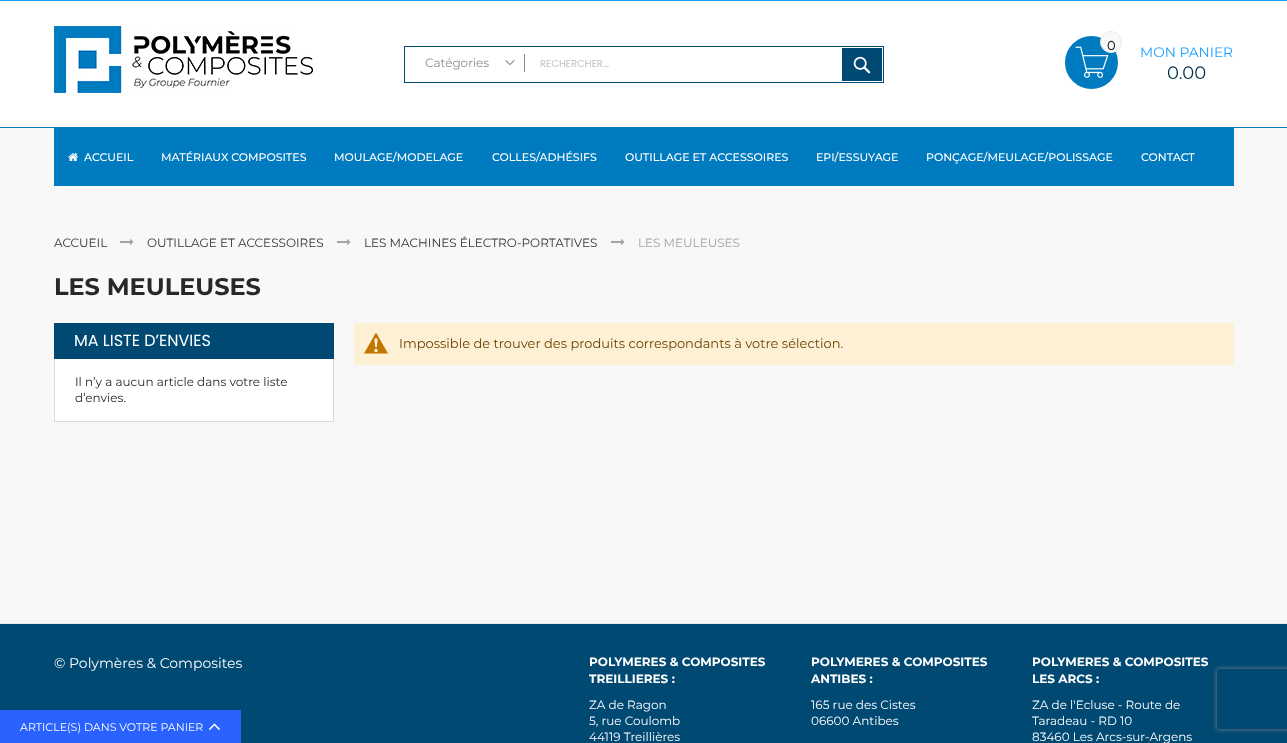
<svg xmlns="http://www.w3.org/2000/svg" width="1287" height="743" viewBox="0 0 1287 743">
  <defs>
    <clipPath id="clip1"><path d="M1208 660H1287V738H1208ZM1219 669H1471C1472 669 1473 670 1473 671V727C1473 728 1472 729 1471 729H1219C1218 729 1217 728 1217 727V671C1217 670 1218 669 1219 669Z" clip-rule="evenodd"/></clipPath>
    <filter id="blur1" x="-50%" y="-200%" width="200%" height="500%"><feGaussianBlur stdDeviation="2.5"/></filter>
  </defs>
  <rect width="100%" height="100%" fill="#f8f8f8"/>
  <rect x="0" y="1" width="1287" height="126" fill="#ffffff"/>
  <rect x="0" y="0" width="1287" height="1" fill="#189eff"/>
  <image x="54" y="26" width="260" height="67" href="img1.png"/>
  <rect x="404.5" y="46.5" width="479" height="36" fill="none" stroke="#004973"/>
  <text x="425" y="67" font-family="Montserrat" font-size="12" fill="#8b8b8b">Catégories</text>
  <image x="505" y="60" width="10" height="6" href="img2.png"/>
  <rect x="524" y="54" width="1" height="18" fill="#8b8b8b"/>
  <text x="540" y="67" font-family="Poppins" font-size="10" fill="#c2c2c2">RECHERCHER...</text>
  <rect x="842" y="48" width="40" height="33" fill="#004973"/>
  <image x="853" y="56" width="18" height="18" href="img3.png"/>
  <circle cx="1091.5" cy="62.5" r="26.5" fill="#007bc0"/>
  <image x="1075" y="46" width="34" height="32" href="img4.png"/>
  <circle cx="1111" cy="42" r="10.5" fill="#f8f8f8" stroke="#ebebeb"/>
  <text x="1107" y="50" font-family="Montserrat" font-size="13" fill="#000000">0</text>
  <text x="1140" y="57" font-family="Montserrat" font-size="13.75" fill="#189eff">MON PANIER</text>
  <text x="1167" y="79" font-family="Montserrat" font-size="18" fill="#002f4a">0.00</text>
  <rect x="0" y="127" width="1287" height="1" fill="#007bc0"/>
  <rect x="54" y="128" width="1180" height="58" fill="#007bc0"/>
  <image x="68" y="153" width="10" height="8" href="img5.png"/>
  <text x="84" y="161" font-family="Montserrat" font-size="11" font-weight="500" fill="#ffffff">ACCUEIL</text>
  <text x="161" y="161" font-family="Montserrat" font-size="11" font-weight="500" fill="#ffffff">MATÉRIAUX COMPOSITES</text>
  <text x="334" y="161" font-family="Montserrat" font-size="11" font-weight="500" fill="#ffffff">MOULAGE/MODELAGE</text>
  <text x="492" y="161" font-family="Montserrat" font-size="11" font-weight="500" fill="#ffffff">COLLES/ADHÉSIFS</text>
  <text x="625" y="161" font-family="Montserrat" font-size="11" font-weight="500" fill="#ffffff">OUTILLAGE ET ACCESSOIRES</text>
  <text x="816" y="161" font-family="Montserrat" font-size="11" font-weight="500" fill="#ffffff">EPI/ESSUYAGE</text>
  <text x="926" y="161" font-family="Montserrat" font-size="11" font-weight="500" fill="#ffffff">PONÇAGE/MEULAGE/POLISSAGE</text>
  <text x="1141" y="161" font-family="Montserrat" font-size="11" font-weight="500" fill="#ffffff">CONTACT</text>
  <text x="54" y="247" font-family="Montserrat" font-size="12" fill="#333333">ACCUEIL</text>
  <image x="120" y="239" width="14" height="6" href="img6.png"/>
  <text x="147" y="247" font-family="Montserrat" font-size="12" fill="#333333">OUTILLAGE ET ACCESSOIRES</text>
  <image x="337" y="239" width="14" height="6" href="img6.png"/>
  <text x="364" y="247" font-family="Montserrat" font-size="12" fill="#333333">LES MACHINES ÉLECTRO-PORTATIVES</text>
  <image x="611" y="239" width="14" height="6" href="img6.png"/>
  <text x="638" y="247" font-family="Montserrat" font-size="12" fill="#a3a3a3">LES MEULEUSES</text>
  <text x="54" y="295" font-family="Montserrat" font-size="24" font-weight="bold" fill="#282828">LES MEULEUSES</text>
  <rect x="55" y="359" width="278" height="62" fill="#ffffff"/>
  <rect x="54" y="323" width="280" height="36" fill="#004973"/>
  <text x="74" y="346" font-family="Poppins" font-size="16" fill="#ffffff">MA LISTE D’ENVIES</text>
  <rect x="333" y="359" width="1" height="63" fill="#dbdbdb"/>
  <rect x="54" y="421" width="280" height="1" fill="#dbdbdb"/>
  <rect x="54" y="359" width="1" height="63" fill="#dbdbdb"/>
  <text x="75" y="386" font-family="Montserrat" font-size="12" fill="#282828">Il n’y a aucun article dans votre liste</text>
  <text x="75" y="402" font-family="Montserrat" font-size="12" fill="#282828">d’envies.</text>
  <rect x="354" y="323" width="880" height="42" fill="#fdf0d5"/>
  <image x="364" y="333" width="24" height="21" href="img7.png"/>
  <text x="399" y="348" font-family="Montserrat" font-size="13" fill="#6f4400">Impossible de trouver des produits correspondants à votre sélection.</text>
  <rect x="0" y="624" width="1287" height="119" fill="#004973"/>
  <rect x="0" y="623" width="1287" height="1" fill="#e8e8e8"/>
  <text x="54" y="668" font-family="Montserrat" font-size="14" fill="#ffffff">© Polymères &amp; Composites</text>
  <text x="589" y="666" font-family="Montserrat" font-size="12" font-weight="bold" fill="#ffffff">POLYMERES &amp; COMPOSITES</text>
  <text x="589" y="683" font-family="Montserrat" font-size="12" font-weight="bold" fill="#ffffff">TREILLIERES :</text>
  <text x="589" y="709" font-family="Montserrat" font-size="12" fill="#ffffff">ZA de Ragon</text>
  <text x="589" y="725" font-family="Montserrat" font-size="12" fill="#ffffff">5, rue Coulomb</text>
  <text x="589" y="741" font-family="Montserrat" font-size="12" fill="#ffffff">44119 Treillières</text>
  <text x="811" y="666" font-family="Montserrat" font-size="12" font-weight="bold" fill="#ffffff">POLYMERES &amp; COMPOSITES</text>
  <text x="811" y="683" font-family="Montserrat" font-size="12" font-weight="bold" fill="#ffffff">ANTIBES :</text>
  <text x="811" y="709" font-family="Montserrat" font-size="12" fill="#ffffff">165 rue des Cistes</text>
  <text x="811" y="725" font-family="Montserrat" font-size="12" fill="#ffffff">06600 Antibes</text>
  <g clip-path="url(#clip1)">
    <rect x="1217" y="669" width="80" height="60" rx="2" fill="#808080" filter="url(#blur1)"/>
  </g>
  <text x="1032" y="666" font-family="Montserrat" font-size="12" font-weight="bold" fill="#ffffff">POLYMERES &amp; COMPOSITES</text>
  <text x="1032" y="683" font-family="Montserrat" font-size="12" font-weight="bold" fill="#ffffff">LES ARCS :</text>
  <text x="1032" y="709" font-family="Montserrat" font-size="12" fill="#ffffff">ZA de l'Ecluse - Route de</text>
  <text x="1032" y="725" font-family="Montserrat" font-size="12" fill="#ffffff">Taradeau - RD 10</text>
  <text x="1032" y="741" font-family="Montserrat" font-size="12" fill="#ffffff">83460 Les Arcs-sur-Argens</text>
  <rect x="0" y="710" width="241" height="33" fill="#2962ff"/>
  <text x="20" y="731" font-family="Montserrat" font-size="11" fill="#ffffff">ARTICLE(S) DANS VOTRE PANIER</text>
  <image x="208" y="723" width="12" height="7" href="img8.png"/>
</svg>
